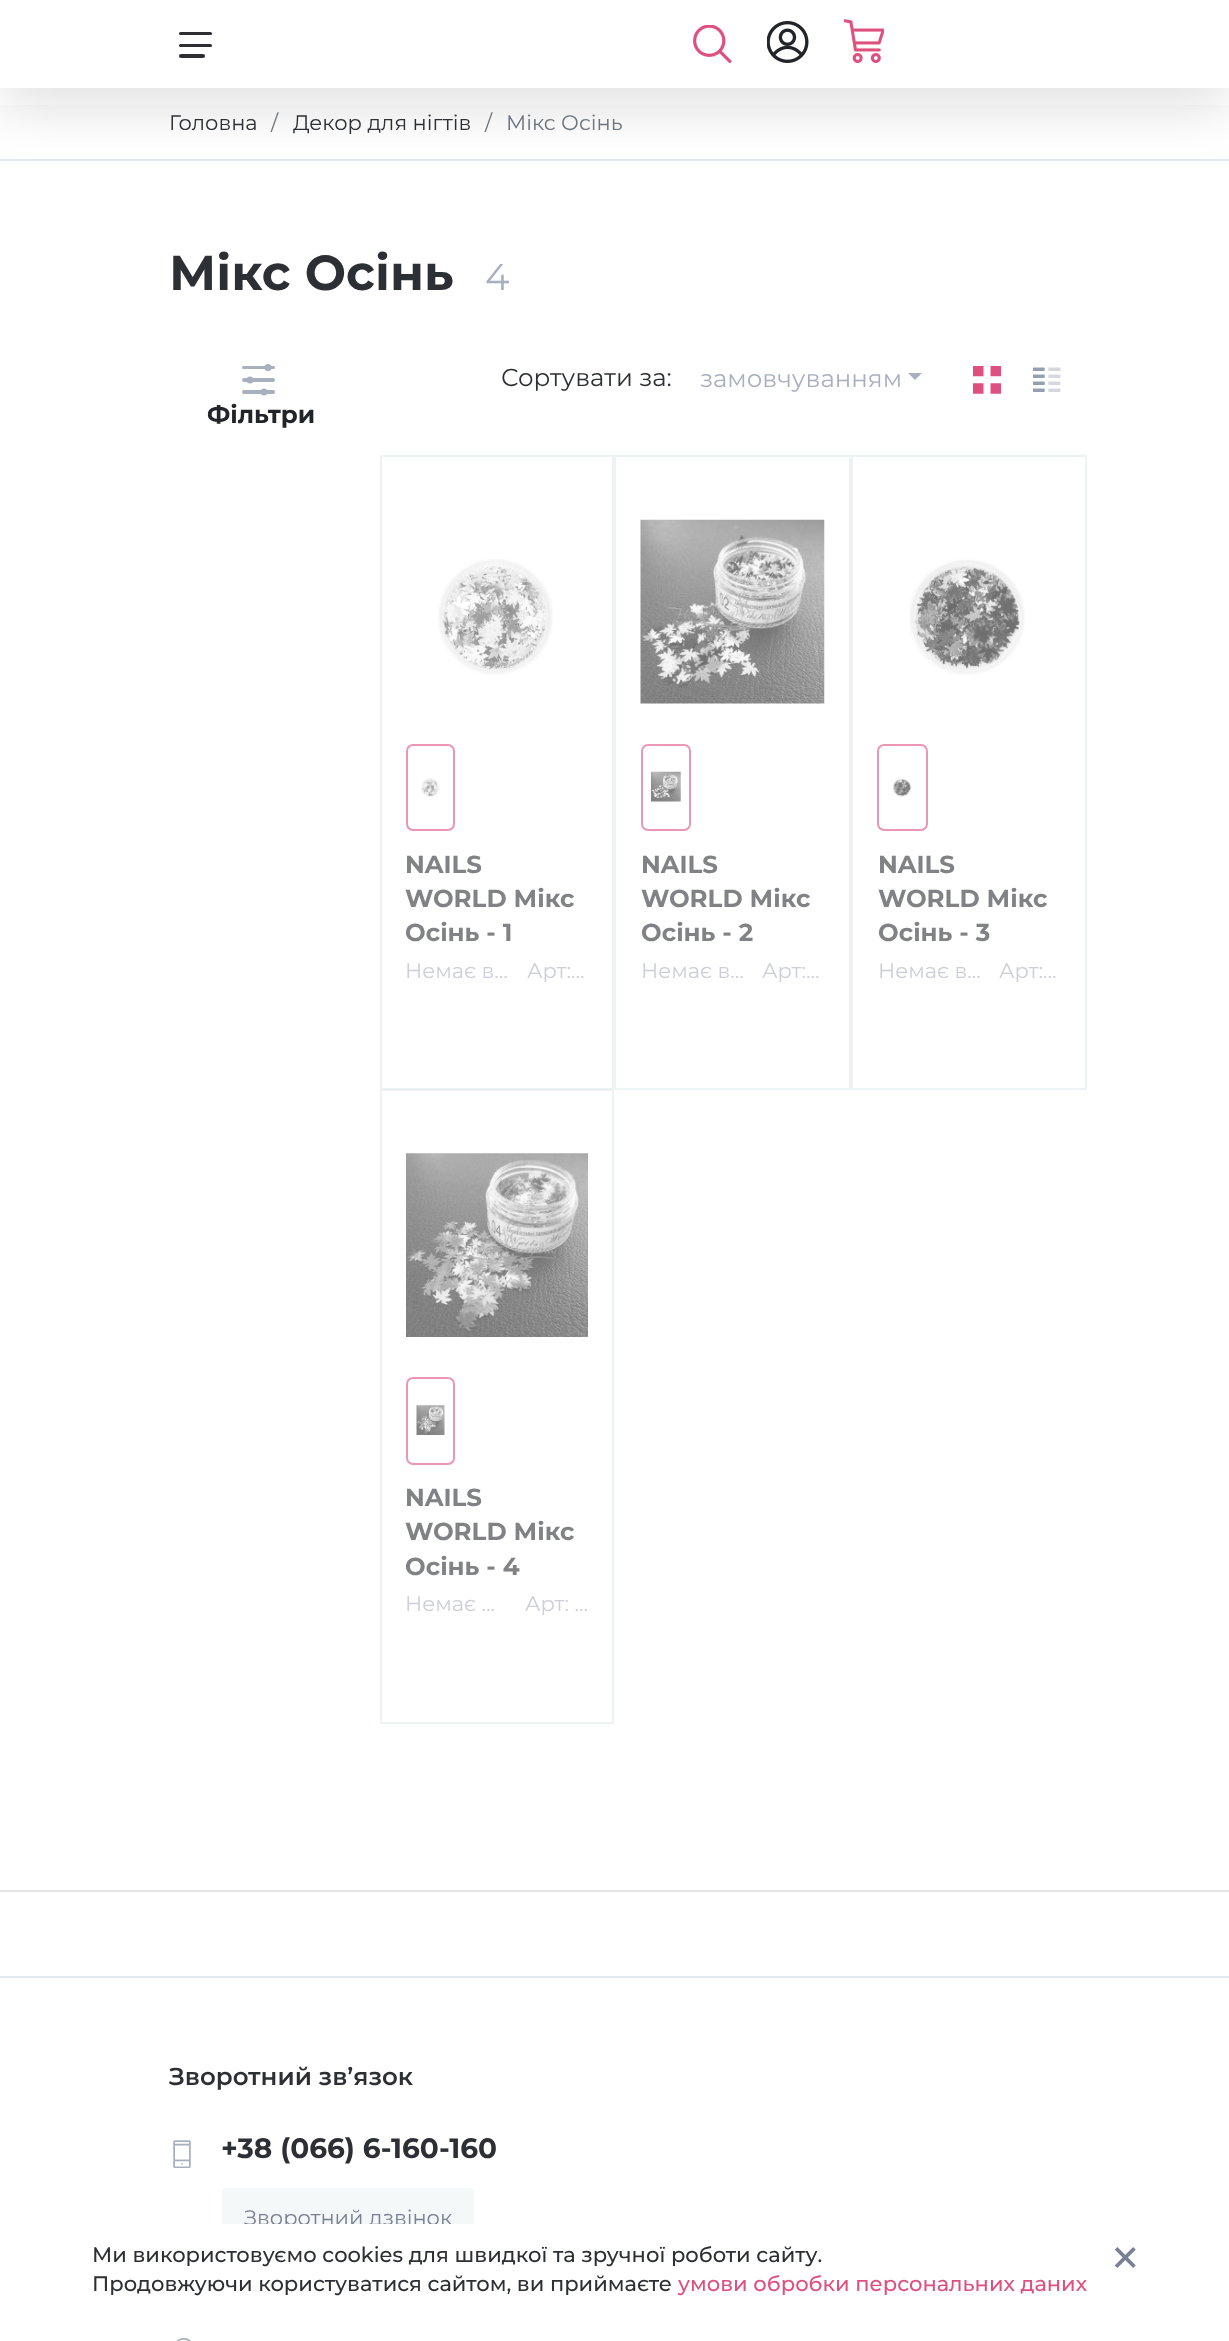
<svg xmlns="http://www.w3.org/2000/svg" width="1229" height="2341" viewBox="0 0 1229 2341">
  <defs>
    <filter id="blur1" x="-50%" y="-200%" width="200%" height="500%"><feGaussianBlur stdDeviation="26"/></filter>
  </defs>
  <rect width="100%" height="100%" fill="#ffffff"/>
  <rect x="0" y="159" width="1229" height="2" fill="#e1e9eb"/>
  <rect x="0" y="18" width="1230" height="87" fill="#393939" fill-opacity="0.15" filter="url(#blur1)"/>
  <rect x="0" y="0" width="1229" height="88" fill="#ffffff"/>
  <rect x="179" y="32" width="33" height="3" rx="1.5" fill="#2c2f34"/>
  <rect x="179" y="44" width="33" height="3" rx="1.5" fill="#2c2f34"/>
  <rect x="179" y="54" width="26" height="4" rx="2" fill="#2c2f34"/>
  <image x="693" y="25" width="39" height="38" href="img1.png"/>
  <image x="767" y="21" width="42" height="42" href="img2.png"/>
  <image x="844" y="19" width="40" height="44" href="img3.png"/>
  <text x="169" y="130" font-family="Montserrat" font-size="21" fill="#2c2f34">Головна</text>
  <text x="271" y="130" font-family="Montserrat" font-size="21" fill="#6c757d">/</text>
  <text x="293" y="130" font-family="Montserrat" font-size="21" fill="#2c2f34">Декор для нігтів</text>
  <text x="485" y="130" font-family="Montserrat" font-size="21" fill="#6c757d">/</text>
  <text x="506" y="130" font-family="Montserrat" font-size="21" fill="#6c757d">Мікс Осінь</text>
  <text x="169" y="290" font-family="Montserrat" font-size="49" font-weight="bold" fill="#2c2f34">Мікс Осінь</text>
  <text x="485" y="290" font-family="Montserrat" font-size="37" fill="#a8afbf">4</text>
  <rect x="242" y="366" width="33" height="3" rx="1.5" fill="#a8afbf"/>
  <circle cx="268" cy="367.5" r="3.5" fill="#a8afbf"/>
  <rect x="242" y="378" width="33" height="4" rx="2" fill="#a8afbf"/>
  <circle cx="250" cy="380" r="3.5" fill="#a8afbf"/>
  <rect x="242" y="390" width="33" height="4" rx="2" fill="#a8afbf"/>
  <circle cx="264" cy="392" r="3.5" fill="#a8afbf"/>
  <text x="207" y="423" font-family="Montserrat" font-size="24.5" font-weight="bold" fill="#212529">Фільтри</text>
  <text x="501" y="386" font-family="Montserrat" font-size="24.5" fill="#2c2f34">Сортувати за:</text>
  <text x="700" y="387" font-family="Montserrat" font-size="24.5" fill="#a8afbf">замовчуванням</text>
  <path d="M908 373H922L915 380Z" fill="#a8afbf"/>
  <image x="973" y="366" width="28" height="28" href="img4.png"/>
  <image x="1033" y="367" width="28" height="25" href="img5.png"/>
  <rect x="381" y="456" width="232" height="633" fill="none" stroke="#edf2f3" stroke-width="2"/>
  <image x="438" y="559" width="115" height="116" href="img6.png"/>
  <rect x="407" y="745" width="47" height="85" rx="6" fill="none" stroke="#eb97b2" stroke-width="2"/>
  <image x="421" y="778" width="19" height="19" href="img7.png"/>
  <text x="405" y="873" font-family="Montserrat" font-size="24.5" font-weight="bold" fill="#808285">NAILS</text>
  <text x="405" y="907" font-family="Montserrat" font-size="24.5" font-weight="bold" fill="#808285">WORLD Мікс</text>
  <text x="405" y="941" font-family="Montserrat" font-size="24.5" font-weight="bold" fill="#808285">Осінь - 1</text>
  <text x="405" y="978" font-family="Montserrat" font-size="21" fill="#cbcfd9">Немає в…</text>
  <text x="527" y="978" font-family="Montserrat" font-size="21" fill="#cbcfd9">Арт:…</text>
  <rect x="615" y="456" width="235" height="633" fill="none" stroke="#edf2f3" stroke-width="2"/>
  <image x="640" y="519" width="185" height="185" href="img8.png"/>
  <rect x="642" y="745" width="48" height="85" rx="6" fill="none" stroke="#eb97b2" stroke-width="2"/>
  <image x="651" y="771" width="30" height="31" href="img9.png"/>
  <text x="641" y="873" font-family="Montserrat" font-size="24.5" font-weight="bold" fill="#808285">NAILS</text>
  <text x="641" y="907" font-family="Montserrat" font-size="24.5" font-weight="bold" fill="#808285">WORLD Мікс</text>
  <text x="641" y="941" font-family="Montserrat" font-size="24.5" font-weight="bold" fill="#808285">Осінь - 2</text>
  <text x="641" y="978" font-family="Montserrat" font-size="21" fill="#cbcfd9">Немає в…</text>
  <text x="762" y="978" font-family="Montserrat" font-size="21" fill="#cbcfd9">Арт:…</text>
  <rect x="852" y="456" width="234" height="633" fill="none" stroke="#edf2f3" stroke-width="2"/>
  <image x="909" y="559" width="116" height="116" href="img10.png"/>
  <rect x="878" y="745" width="49" height="85" rx="6" fill="none" stroke="#eb97b2" stroke-width="2"/>
  <image x="892" y="778" width="20" height="19" href="img11.png"/>
  <text x="878" y="873" font-family="Montserrat" font-size="24.5" font-weight="bold" fill="#808285">NAILS</text>
  <text x="878" y="907" font-family="Montserrat" font-size="24.5" font-weight="bold" fill="#808285">WORLD Мікс</text>
  <text x="878" y="941" font-family="Montserrat" font-size="24.5" font-weight="bold" fill="#808285">Осінь - 3</text>
  <text x="878" y="978" font-family="Montserrat" font-size="21" fill="#cbcfd9">Немає в…</text>
  <text x="999" y="978" font-family="Montserrat" font-size="21" fill="#cbcfd9">Арт:…</text>
  <rect x="380" y="1089" width="234" height="1" fill="#ffffff" fill-opacity="0.6"/>
  <rect x="381" y="1090" width="232" height="633" fill="none" stroke="#e1e9eb" stroke-opacity="0.6" stroke-width="2"/>
  <image x="406" y="1153" width="182" height="184" href="img12.png"/>
  <rect x="407" y="1378" width="47" height="86" rx="6" fill="none" stroke="#eb97b2" stroke-width="2"/>
  <image x="416" y="1405" width="29" height="30" href="img13.png"/>
  <text x="405" y="1506" font-family="Montserrat" font-size="24.5" font-weight="bold" fill="#808285">NAILS</text>
  <text x="405" y="1540" font-family="Montserrat" font-size="24.5" font-weight="bold" fill="#808285">WORLD Мікс</text>
  <text x="405" y="1575" font-family="Montserrat" font-size="24.5" font-weight="bold" fill="#808285">Осінь - 4</text>
  <text x="405" y="1611" font-family="Montserrat" font-size="21" fill="#cbcfd9">Немає …</text>
  <text x="525" y="1611" font-family="Montserrat" font-size="21" fill="#cbcfd9">Арт: …</text>
  <rect x="0" y="1890" width="1229" height="2" fill="#e6e6e6"/>
  <rect x="0" y="1976" width="1229" height="2" fill="#e1e9eb"/>
  <text x="169" y="2085" font-family="Montserrat" font-size="24.5" font-weight="600" fill="#2c2f34">Зворотний зв’язок</text>
  <image x="173" y="2140" width="18" height="28" href="img14.png"/>
  <text x="221" y="2158" font-family="Montserrat" font-size="28" font-weight="bold" fill="#2c2f34">+38 (066) 6-160-160</text>
  <rect x="222" y="2188" width="252" height="61" rx="5" fill="#f5f8f9"/>
  <text x="244" y="2225" font-family="Montserrat" font-size="21" fill="#788093">Зворотний дзвінок</text>
  <image x="176" y="2338" width="15" height="3" href="img15.png"/>
  <rect x="68" y="2224" width="1094" height="91" rx="5" fill="#ffffff"/>
  <text x="92" y="2262" font-family="Montserrat" font-size="21" font-weight="500" fill="#2c2f34">Ми використовуємо cookies для швидкої та зручної роботи сайту.</text>
  <image x="1115" y="2247" width="21" height="21" href="img16.png"/>
  <text x="92" y="2291" font-family="Montserrat" font-size="21" font-weight="500" fill="#2c2f34">Продовжуючи користуватися сайтом, ви приймаєте</text>
  <text x="678" y="2291" font-family="Montserrat" font-size="21" font-weight="500" fill="#de517f">умови обробки персональних даних</text>
</svg>
